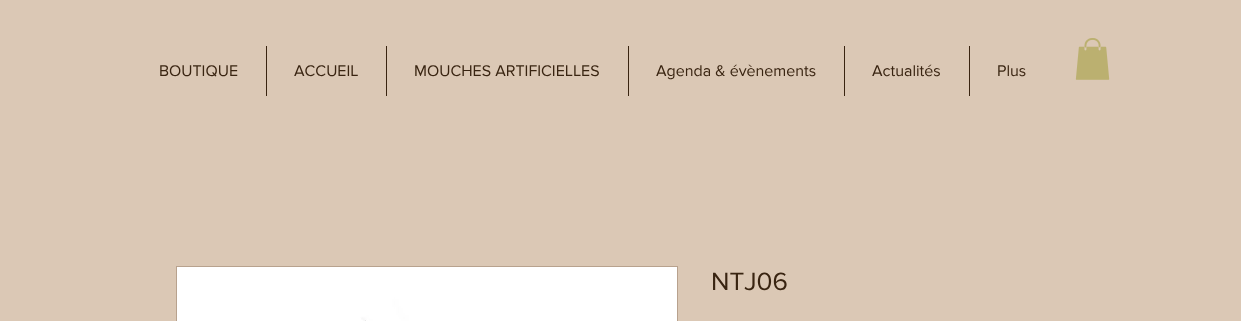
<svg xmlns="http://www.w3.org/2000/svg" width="1241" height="321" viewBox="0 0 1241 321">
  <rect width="100%" height="100%" fill="#dbc8b5"/>
  <text x="159" y="76" font-family="'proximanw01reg'" font-size="16" fill="#392411">BOUTIQUE</text>
  <rect x="266" y="46" width="1" height="50" fill="#392411"/>
  <text x="294" y="76" font-family="'proximanw01reg'" font-size="16" fill="#392411">ACCUEIL</text>
  <rect x="386" y="46" width="1" height="50" fill="#392411"/>
  <text x="414" y="76" font-family="'proximanw01reg'" font-size="16" fill="#392411">MOUCHES ARTIFICIELLES</text>
  <rect x="628" y="46" width="1" height="50" fill="#392411"/>
  <text x="656" y="76" font-family="'proximanw01reg'" font-size="16" fill="#392411">Agenda &amp; évènements</text>
  <rect x="844" y="46" width="1" height="50" fill="#392411"/>
  <text x="872" y="76" font-family="'proximanw01reg'" font-size="16" fill="#392411">Actualités</text>
  <rect x="969" y="46" width="1" height="50" fill="#392411"/>
  <text x="997" y="76" font-family="'proximanw01reg'" font-size="16" fill="#392411">Plus</text>
  <image x="1075" y="38" width="35" height="42" href="img1.png"/>
  <rect x="176.5" y="266.5" width="501" height="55" fill="none" stroke="#b8a28e"/>
  <image x="177" y="267" width="500" height="54" href="img2.png"/>
  <text x="711" y="290" font-family="'proximanw01reg'" font-size="26" fill="#392411">NTJ06</text>
</svg>
